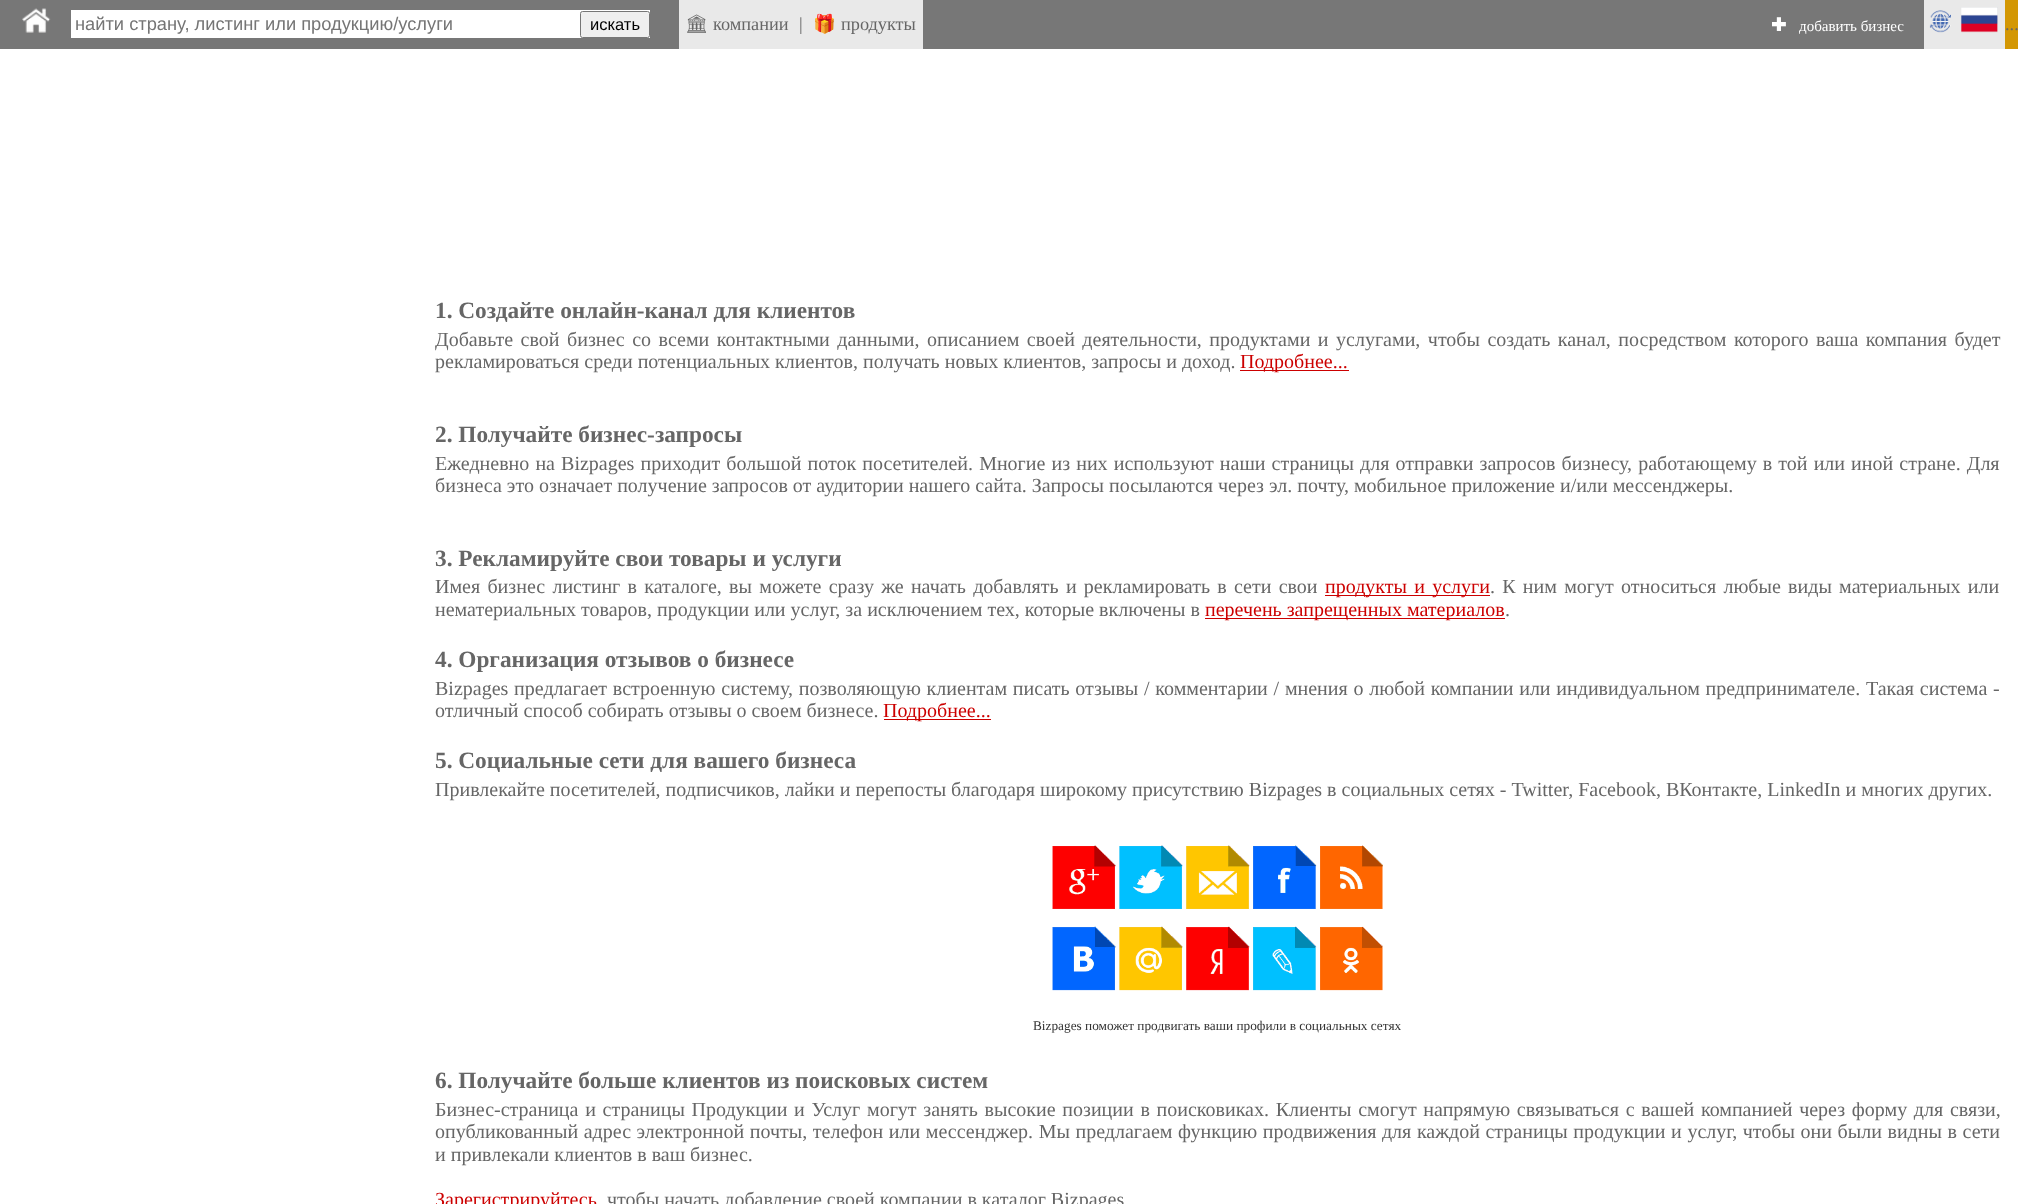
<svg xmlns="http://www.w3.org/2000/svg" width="2018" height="1204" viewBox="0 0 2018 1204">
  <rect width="100%" height="100%" fill="#ffffff"/>
  <rect x="0" y="0" width="1924" height="49" fill="#777777"/>
  <image x="22" y="8" width="29" height="25" href="img1.png"/>
  <rect x="71" y="10" width="579" height="28" fill="#ffffff"/>
  <text x="75" y="30" font-family="Liberation Sans" font-size="18.3" fill="#757575">найти страну, листинг или продукцию/услуги</text>
  <rect x="580.5" y="11.5" width="69" height="26" rx="2" fill="#efefef" stroke="#767676"/>
  <text x="590" y="30" font-family="Liberation Sans" font-size="16.5" fill="#000000">искать</text>
  <rect x="679" y="0" width="244" height="49" fill="#e9e9e9"/>
  <text x="685" y="30" font-family="Noto Emoji" font-size="18.3" fill="#666666">🏛</text>
  <text x="713" y="30" font-family="Liberation Serif" font-size="18.3" fill="#666666">компании</text>
  <text x="799" y="30" font-family="Liberation Serif" font-size="18.3" fill="#666666">|</text>
  <text x="813" y="30" font-family="Noto Color Emoji" font-size="18.3" fill="#666666">🎁</text>
  <text x="841" y="30" font-family="Liberation Serif" font-size="18.3" fill="#666666">продукты</text>
  <text x="1771" y="31" font-family="DejaVu Sans" font-size="18.3" font-weight="bold" fill="#ffffff">✚</text>
  <text x="1799" y="31" font-family="Liberation Serif" font-size="15" fill="#ffffff">добавить бизнес</text>
  <rect x="1924" y="0" width="81" height="49" fill="#e9e9e9"/>
  <image x="1929" y="7" width="69" height="26" href="img2.png"/>
  <rect x="2005" y="0" width="13" height="49" fill="#d39703"/>
  <text x="2005" y="30" font-family="Liberation Serif" font-size="18.3" fill="#666666">...</text>
  <text x="435" y="318" font-family="Liberation Serif" font-size="23.3" font-weight="bold" fill="#666666">1. Создайте онлайн-канал для клиентов</text>
  <text x="435" y="346" word-spacing="2.5" font-family="Liberation Serif" font-size="20" fill="#666666">Добавьте свой бизнес со всеми контактными данными, описанием своей деятельности, продуктами и услугами, чтобы создать канал, посредством которого ваша компания будет</text>
  <text x="435" y="368" font-family="Liberation Serif" font-size="20" fill="#666666">рекламироваться среди потенциальных клиентов, получать новых клиентов, запросы и доход.</text>
  <rect x="1240" y="370" width="109" height="1" fill="#cc0000"/>
  <text x="1240" y="368" font-family="Liberation Serif" font-size="20" fill="#cc0000">Подробнее...</text>
  <text x="435" y="442" font-family="Liberation Serif" font-size="23.3" font-weight="bold" fill="#666666">2. Получайте бизнес-запросы</text>
  <text x="435" y="470" word-spacing="1.1" font-family="Liberation Serif" font-size="20" fill="#666666">Ежедневно на Bizpages приходит большой поток посетителей. Многие из них используют наши страницы для отправки запросов бизнесу, работающему в той или иной стране. Для</text>
  <text x="435" y="492" font-family="Liberation Serif" font-size="20" fill="#666666">бизнеса это означает получение запросов от аудитории нашего сайта. Запросы посылаются через эл. почту, мобильное приложение и/или мессенджеры.</text>
  <text x="435" y="566" font-family="Liberation Serif" font-size="23.3" font-weight="bold" fill="#666666">3. Рекламируйте свои товары и услуги</text>
  <text x="435" y="593" word-spacing="2.25" font-family="Liberation Serif" font-size="20" fill="#666666">Имея бизнес листинг в каталоге, вы можете сразу же начать добавлять и рекламировать в сети свои</text>
  <rect x="1325" y="595" width="165" height="1" fill="#cc0000"/>
  <text x="1325" y="593" word-spacing="2.25" font-family="Liberation Serif" font-size="20" fill="#cc0000">продукты и услуги</text>
  <text x="1490" y="593" word-spacing="2.25" font-family="Liberation Serif" font-size="20" fill="#666666">. К ним могут относиться любые виды материальных или</text>
  <text x="435" y="616" font-family="Liberation Serif" font-size="20" fill="#666666">нематериальных товаров, продукции или услуг, за исключением тех, которые включены в</text>
  <rect x="1205" y="618" width="300" height="1" fill="#cc0000"/>
  <text x="1205" y="616" font-family="Liberation Serif" font-size="20" fill="#cc0000">перечень запрещенных материалов</text>
  <text x="1505" y="616" font-family="Liberation Serif" font-size="20" fill="#666666">.</text>
  <text x="435" y="667" font-family="Liberation Serif" font-size="23.3" font-weight="bold" fill="#666666">4. Организация отзывов о бизнесе</text>
  <text x="435" y="695" word-spacing="0.75" font-family="Liberation Serif" font-size="20" fill="#666666">Bizpages предлагает встроенную систему, позволяющую клиентам писать отзывы / комментарии / мнения о любой компании или индивидуальном предпринимателе. Такая система -</text>
  <text x="435" y="717" font-family="Liberation Serif" font-size="20" fill="#666666">отличный способ собирать отзывы о своем бизнесе.</text>
  <rect x="884" y="719" width="107" height="1" fill="#cc0000"/>
  <text x="883" y="717" font-family="Liberation Serif" font-size="20" fill="#cc0000">Подробнее...</text>
  <text x="435" y="768" font-family="Liberation Serif" font-size="23.3" font-weight="bold" fill="#666666">5. Cоциальные сети для вашего бизнеса</text>
  <text x="435" y="796" font-family="Liberation Serif" font-size="20" fill="#666666">Привлекайте посетителей, подписчиков, лайки и перепосты благодаря широкому присутствию Bizpages в социальных сетях - Twitter, Facebook, ВКонтакте, LinkedIn и многих других.</text>
  <image x="1052" y="845" width="331" height="146" href="img3.png"/>
  <text x="1033" y="1030" font-family="Liberation Serif" font-size="13.3" fill="#333333">Bizpages поможет продвигать ваши профили в социальных сетях</text>
  <text x="435" y="1088" font-family="Liberation Serif" font-size="23.3" font-weight="bold" fill="#666666">6. Получайте больше клиентов из поисковых систем</text>
  <text x="435" y="1116" word-spacing="1.7" font-family="Liberation Serif" font-size="20" fill="#666666">Бизнес-страница и страницы Продукции и Услуг могут занять высокие позиции в поисковиках. Клиенты смогут напрямую связываться с вашей компанией через форму для связи,</text>
  <text x="435" y="1138" word-spacing="0.6" font-family="Liberation Serif" font-size="20" fill="#666666">опубликованный адрес электронной почты, телефон или мессенджер. Мы предлагаем функцию продвижения для каждой страницы продукции и услуг, чтобы они были видны в сети</text>
  <text x="435" y="1161" font-family="Liberation Serif" font-size="20" fill="#666666">и привлекали клиентов в ваш бизнес.</text>
  <text x="435" y="1206" font-family="Liberation Serif" font-size="20" fill="#cc0000">Зарегистрируйтесь</text>
  <text x="607" y="1206" font-family="Liberation Serif" font-size="20" fill="#666666">чтобы начать добавление своей компании в каталог Bizpages</text>
</svg>
